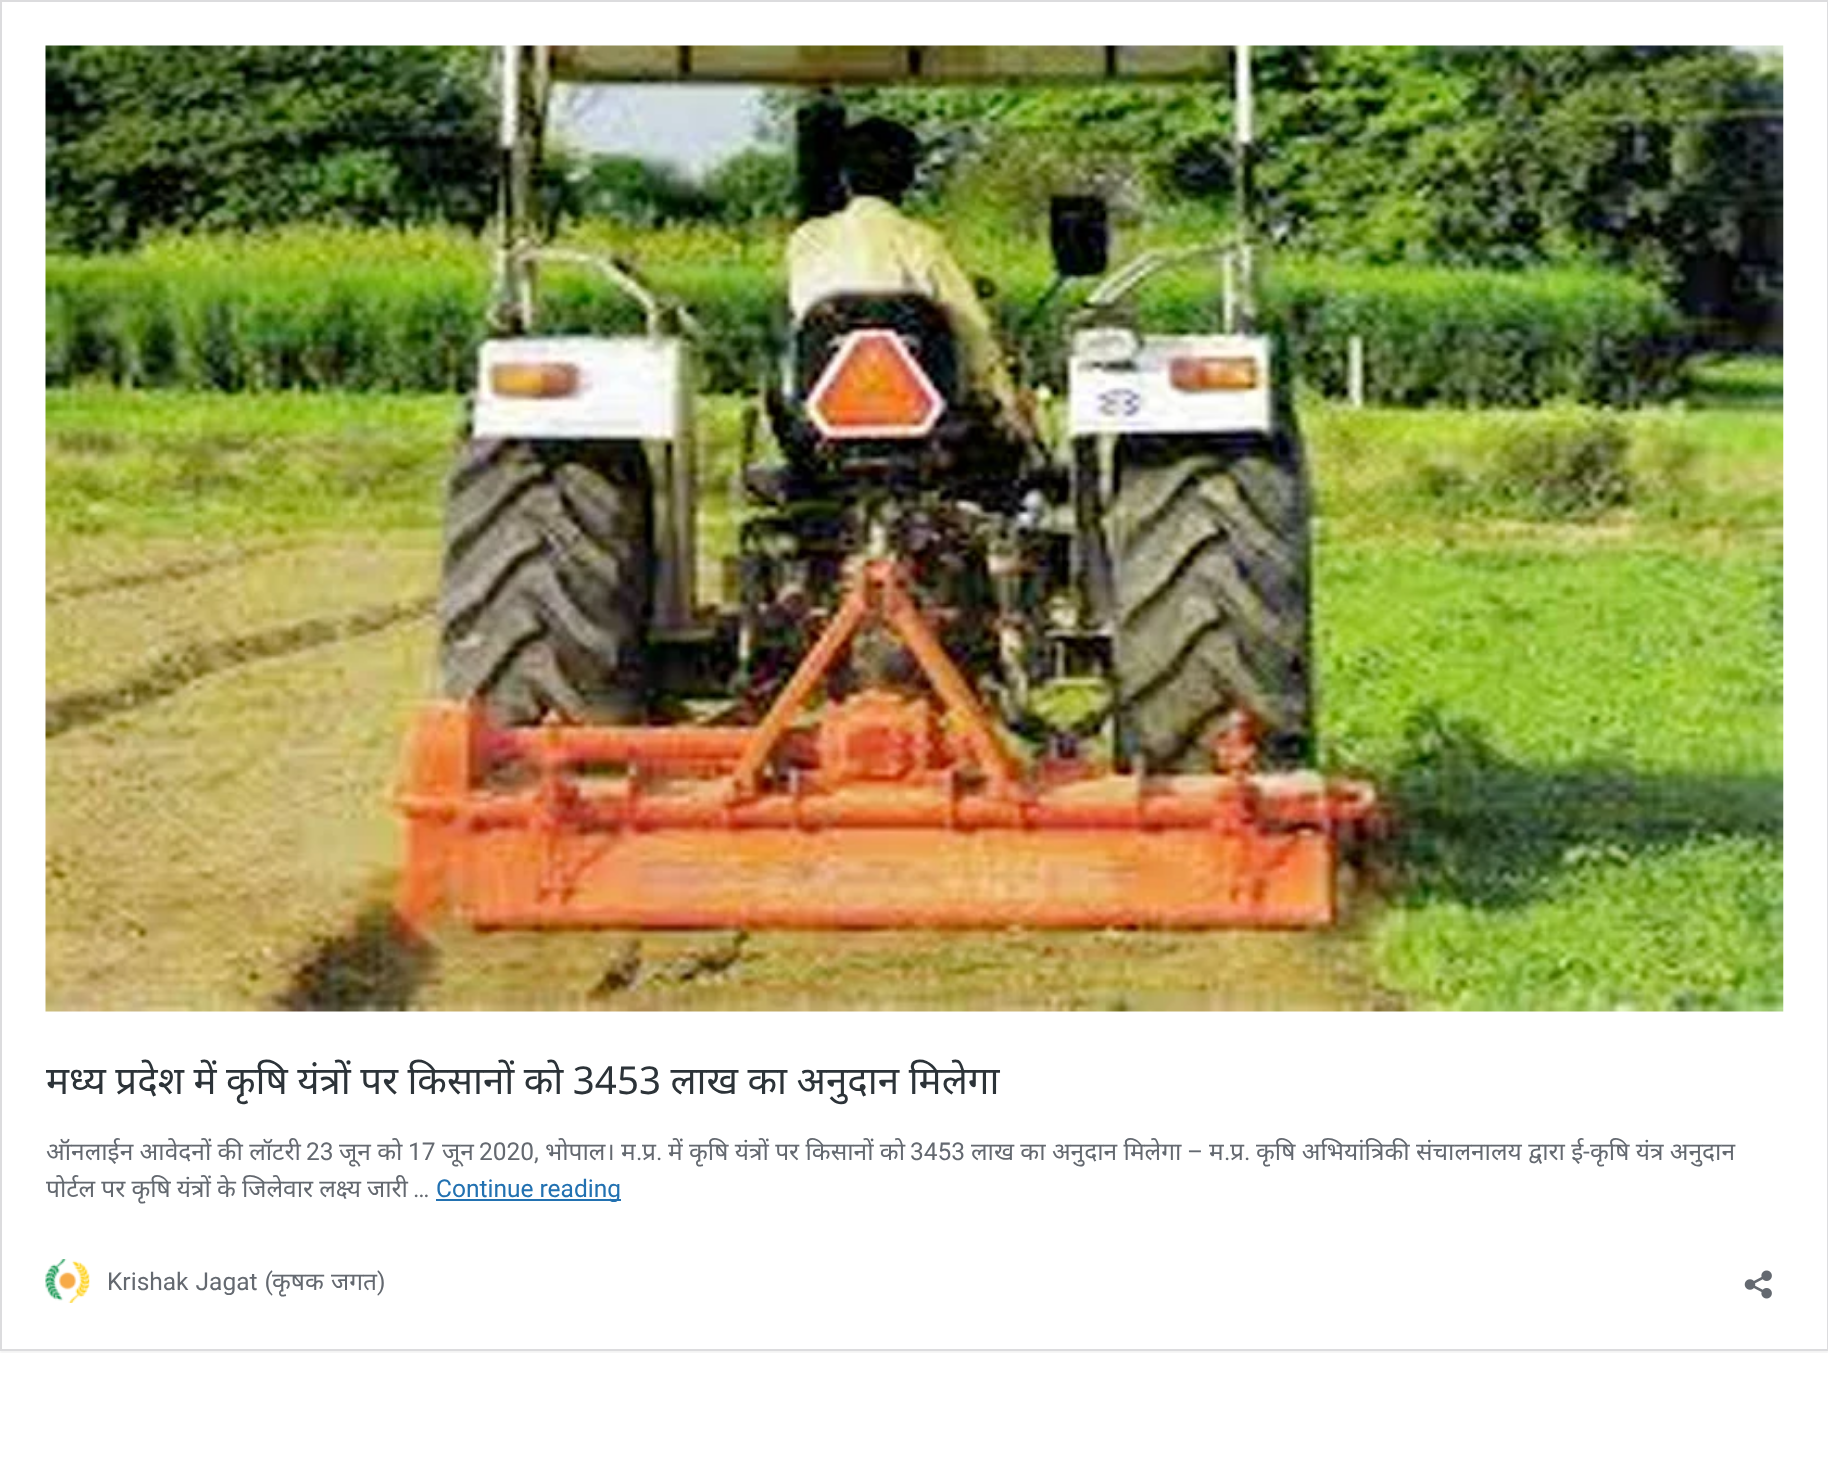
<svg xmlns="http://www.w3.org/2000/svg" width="1828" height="1473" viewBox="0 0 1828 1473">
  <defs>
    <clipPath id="clip1"><rect x="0" y="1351" width="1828" height="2"/></clipPath>
    <filter id="blur1" x="-50%" y="-200%" width="200%" height="500%"><feGaussianBlur stdDeviation="1"/></filter>
  </defs>
  <rect width="100%" height="100%" fill="#ffffff"/>
  <g clip-path="url(#clip1)">
    <rect x="0" y="2" width="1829" height="1351" fill="#000000" fill-opacity="0.05" filter="url(#blur1)"/>
  </g>
  <rect x="1" y="1" width="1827" height="1349" fill="none" stroke="#dcdcde" stroke-width="2"/>
  <image x="45" y="45" width="1739" height="967" href="img1.png"/>
  <text x="46" y="1094" word-spacing="-0.5" font-family="Noto Sans" font-size="38.5" fill="#2c3338">मध्य प्रदेश में कृषि यंत्रों पर किसानों को 3453 लाख का अनुदान मिलेगा</text>
  <text x="46" y="1160" font-family="Noto Sans" font-size="24.5" fill="#646970">ऑनलाईन आवेदनों की लॉटरी</text>
  <text x="306" y="1160" font-family="Roboto" font-size="24.5" fill="#646970">23</text>
  <text x="339" y="1160" font-family="Noto Sans" font-size="24.5" fill="#646970">जून को</text>
  <text x="408" y="1160" font-family="Roboto" font-size="24.5" fill="#646970">17</text>
  <text x="442" y="1160" font-family="Noto Sans" font-size="24.5" fill="#646970">जून</text>
  <text x="479" y="1160" font-family="Roboto" font-size="24.5" fill="#646970">2020,</text>
  <text x="545" y="1160" font-family="Noto Sans" font-size="24.5" fill="#646970">भोपाल। म</text>
  <text x="642" y="1160" font-family="Noto Sans" font-size="24.5" fill="#646970">प्र</text>
  <text x="656" y="1160" font-family="Roboto" font-size="24.5" fill="#646970">.</text>
  <text x="668" y="1160" font-family="Noto Sans" font-size="24.5" fill="#646970">में कृषि यंत्रों पर किसानों को</text>
  <text x="910" y="1160" font-family="Roboto" font-size="24.5" fill="#646970">3453</text>
  <text x="971" y="1160" font-family="Noto Sans" font-size="24.5" fill="#646970">लाख का अनुदान मिलेगा</text>
  <text x="1187" y="1160" font-family="Roboto" font-size="24.5" fill="#646970">–</text>
  <text x="1209" y="1160" font-family="Noto Sans" font-size="24.5" fill="#646970">म प्र</text>
  <text x="1244" y="1160" font-family="Roboto" font-size="24.5" fill="#646970">.</text>
  <text x="1256" y="1160" font-family="Noto Sans" font-size="24.5" fill="#646970">कृषि अभियांत्रिकी संचालनालय द्वारा ई</text>
  <text x="1583" y="1160" font-family="Roboto" font-size="24.5" fill="#646970">-</text>
  <text x="1590" y="1160" font-family="Noto Sans" font-size="24.5" fill="#646970">कृषि यंत्र अनुदान</text>
  <text x="636" y="1160" font-family="Roboto" font-size="24.5" fill="#646970">.</text>
  <text x="1224" y="1160" font-family="Roboto" font-size="24.5" fill="#646970">.</text>
  <text x="46" y="1197" word-spacing="-0.25" font-family="Noto Sans" font-size="24.5" fill="#646970">पोर्टल पर कृषि यंत्रों के जिलेवार लक्ष्य जारी</text>
  <text x="413" y="1197" font-family="Roboto" font-size="24.5" fill="#646970">…</text>
  <rect x="436" y="1199" width="185" height="2" fill="#2271b1"/>
  <text x="436" y="1197" font-family="Roboto" font-size="24.5" fill="#2271b1">Continue reading</text>
  <image x="45" y="1259" width="45" height="44" href="img2.png"/>
  <text x="107" y="1290" word-spacing="1" font-family="Roboto" font-size="24.5" fill="#646970">Krishak Jagat (</text>
  <text x="272" y="1290" font-family="Noto Sans" font-size="24.5" fill="#646970">कृषक</text>
  <text x="331" y="1290" font-family="Noto Sans" font-size="24.5" fill="#646970">जगत</text>
  <text x="377" y="1290" font-family="Roboto" font-size="24.5" fill="#646970">)</text>
  <image x="1744" y="1270" width="28" height="29" href="img3.png"/>
</svg>
